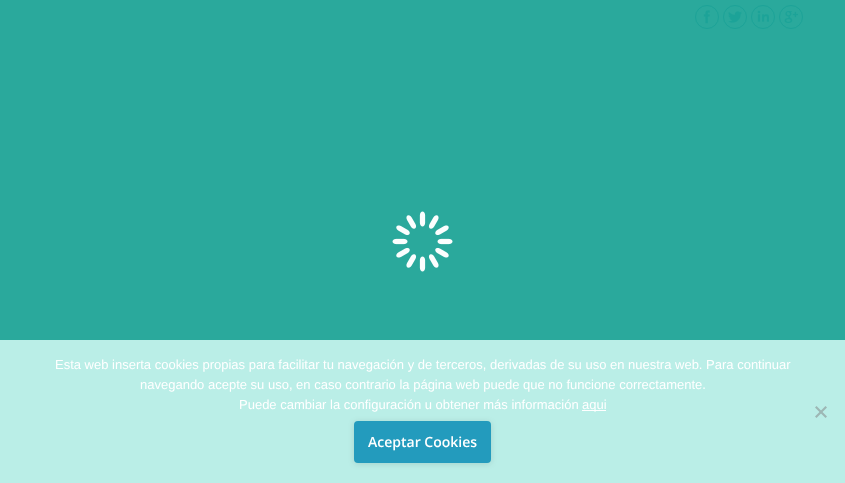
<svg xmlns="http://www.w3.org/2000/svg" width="845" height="483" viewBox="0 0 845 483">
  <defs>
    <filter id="blur1" x="-50%" y="-200%" width="200%" height="500%"><feGaussianBlur stdDeviation="3"/></filter>
  </defs>
  <rect width="100%" height="100%" fill="#2aa99c"/>
  <circle cx="707" cy="17" r="11.5" fill="none" stroke="#1ca398"/>
  <image x="703" y="10" width="7" height="14" href="img1.png"/>
  <circle cx="735" cy="17" r="11.5" fill="none" stroke="#1ca398"/>
  <image x="728" y="11" width="14" height="12" href="img2.png"/>
  <circle cx="763" cy="17" r="11.5" fill="none" stroke="#1ca398"/>
  <image x="757" y="10" width="12" height="12" href="img3.png"/>
  <circle cx="791" cy="17" r="11.5" fill="none" stroke="#1ca398"/>
  <image x="784" y="11" width="15" height="12" href="img4.png"/>
  <image x="392" y="211" width="61" height="61" href="img5.png"/>
  <rect x="0" y="340" width="845" height="143" fill="#baeee7"/>
  <text x="55" y="369" font-family="Liberation Sans" font-size="13" fill="#ffffff">Esta web inserta cookies propias para facilitar tu navegación y de terceros, derivadas de su uso en nuestra web. Para continuar</text>
  <text x="140" y="389" font-family="Liberation Sans" font-size="13" fill="#ffffff">navegando acepte su uso, en caso contrario la página web puede que no funcione correctamente.</text>
  <text x="239" y="409" font-family="Liberation Sans" font-size="13" fill="#ffffff">Puede cambiar la configuración u obtener más información</text>
  <rect x="582" y="410" width="24" height="1" fill="#ffffff"/>
  <text x="582" y="409" font-family="Liberation Sans" font-size="13" fill="#ffffff">aqui</text>
  <path d="M825.5 406L827 407.5L816.5 418L815 416.5Z" fill="#9db7b4"/>
  <path d="M815 407.5L816.5 406L827 416.5L825.5 418Z" fill="#9db7b4"/>
  <rect x="354" y="422" width="137" height="42" rx="4" fill="#000000" fill-opacity="0.12" filter="url(#blur1)"/>
  <rect x="354" y="421" width="137" height="42" rx="4" fill="#239bbd"/>
  <text x="368" y="447" font-family="Open Sans" font-size="14" font-weight="600" fill="#ffffff">Aceptar Cookies</text>
</svg>
